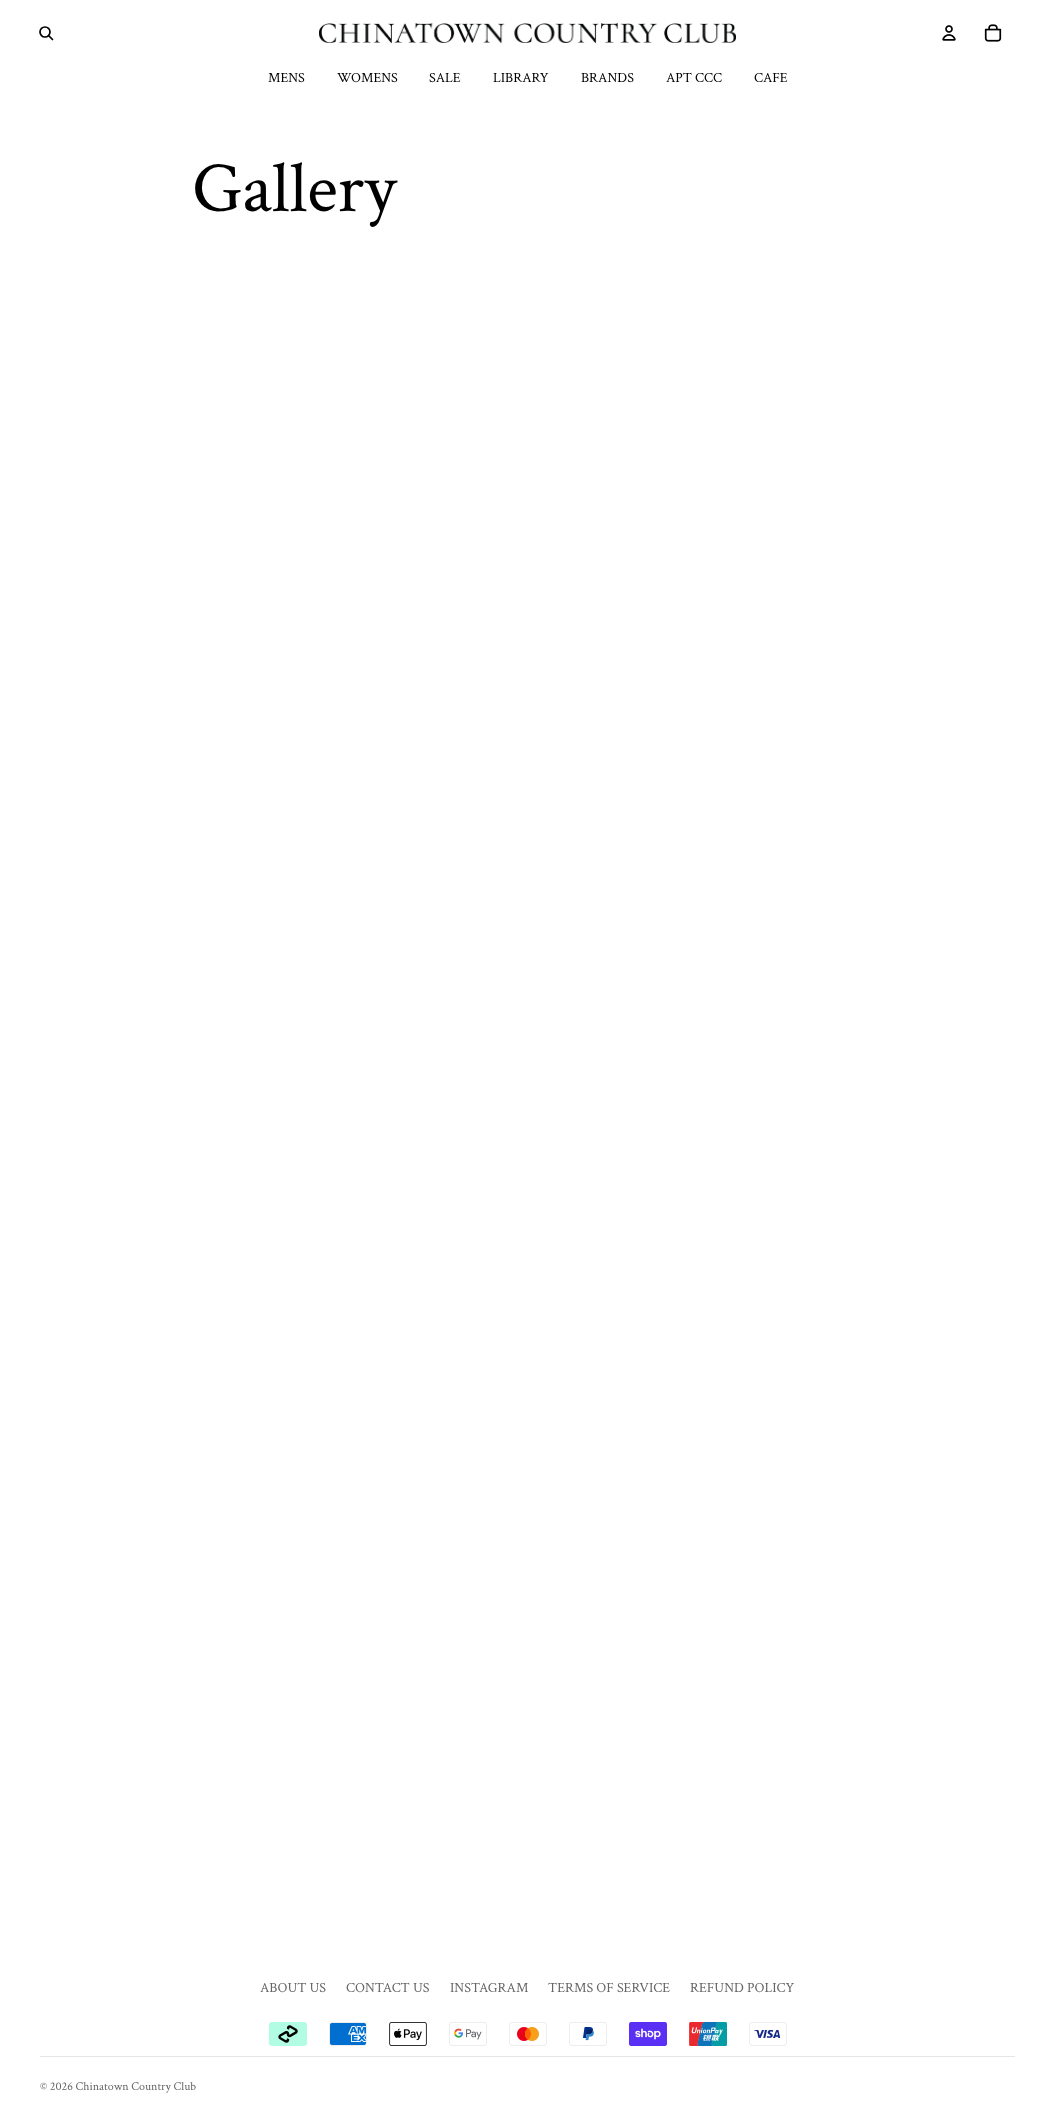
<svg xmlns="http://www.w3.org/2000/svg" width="1055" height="2116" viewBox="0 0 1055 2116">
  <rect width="100%" height="100%" fill="#ffffff"/>
  <circle cx="45" cy="32" r="5" fill="none" stroke="#000000" stroke-width="1.7"/>
  <path d="M49 36L52.5 39.5" fill="none" stroke="#000000" stroke-width="1.7" stroke-linecap="round" stroke-linejoin="round"/>
  <image x="319" y="23" width="417" height="20" href="img1.png"/>
  <image x="942" y="25" width="14" height="16" href="img2.png"/>
  <image x="984" y="24" width="18" height="18" href="img3.png"/>
  <text x="268" y="82" font-family="Crimson Text" font-size="14" fill="#000000">MENS</text>
  <text x="337" y="82" font-family="Crimson Text" font-size="14" fill="#000000">WOMENS</text>
  <text x="429" y="82" font-family="Crimson Text" font-size="14" fill="#000000">SALE</text>
  <text x="493" y="82" font-family="Crimson Text" font-size="14" fill="#000000">LIBRARY</text>
  <text x="581" y="82" font-family="Crimson Text" font-size="14" fill="#000000">BRANDS</text>
  <text x="666" y="82" font-family="Crimson Text" font-size="14" fill="#000000">APT CCC</text>
  <text x="754" y="82" font-family="Crimson Text" font-size="14" fill="#000000">CAFE</text>
  <text x="192" y="211" font-family="Crimson Text" font-size="72" fill="#000000">Gallery</text>
  <text x="260" y="1992" font-family="Crimson Text" font-size="14" fill="#666666">ABOUT US</text>
  <text x="346" y="1992" font-family="Crimson Text" font-size="14" fill="#666666">CONTACT US</text>
  <text x="450" y="1992" font-family="Crimson Text" font-size="14" fill="#666666">INSTAGRAM</text>
  <text x="548" y="1992" font-family="Crimson Text" font-size="14" fill="#666666">TERMS OF SERVICE</text>
  <text x="690" y="1992" font-family="Crimson Text" font-size="14" fill="#666666">REFUND POLICY</text>
  <image x="269" y="2022" width="38" height="24" href="img4.png"/>
  <image x="329" y="2022" width="38" height="24" href="img5.png"/>
  <image x="389" y="2022" width="38" height="24" href="img6.png"/>
  <image x="449" y="2022" width="38" height="24" href="img7.png"/>
  <image x="509" y="2022" width="38" height="24" href="img8.png"/>
  <image x="569" y="2022" width="38" height="24" href="img9.png"/>
  <image x="629" y="2022" width="38" height="24" href="img10.png"/>
  <image x="689" y="2022" width="38" height="24" href="img11.png"/>
  <image x="749" y="2022" width="38" height="24" href="img12.png"/>
  <rect x="40" y="2056" width="975" height="1" fill="#e6e6e6"/>
  <text x="40" y="2090" font-family="Crimson Text" font-size="12" fill="#666666">© 2026 Chinatown Country Club</text>
</svg>
